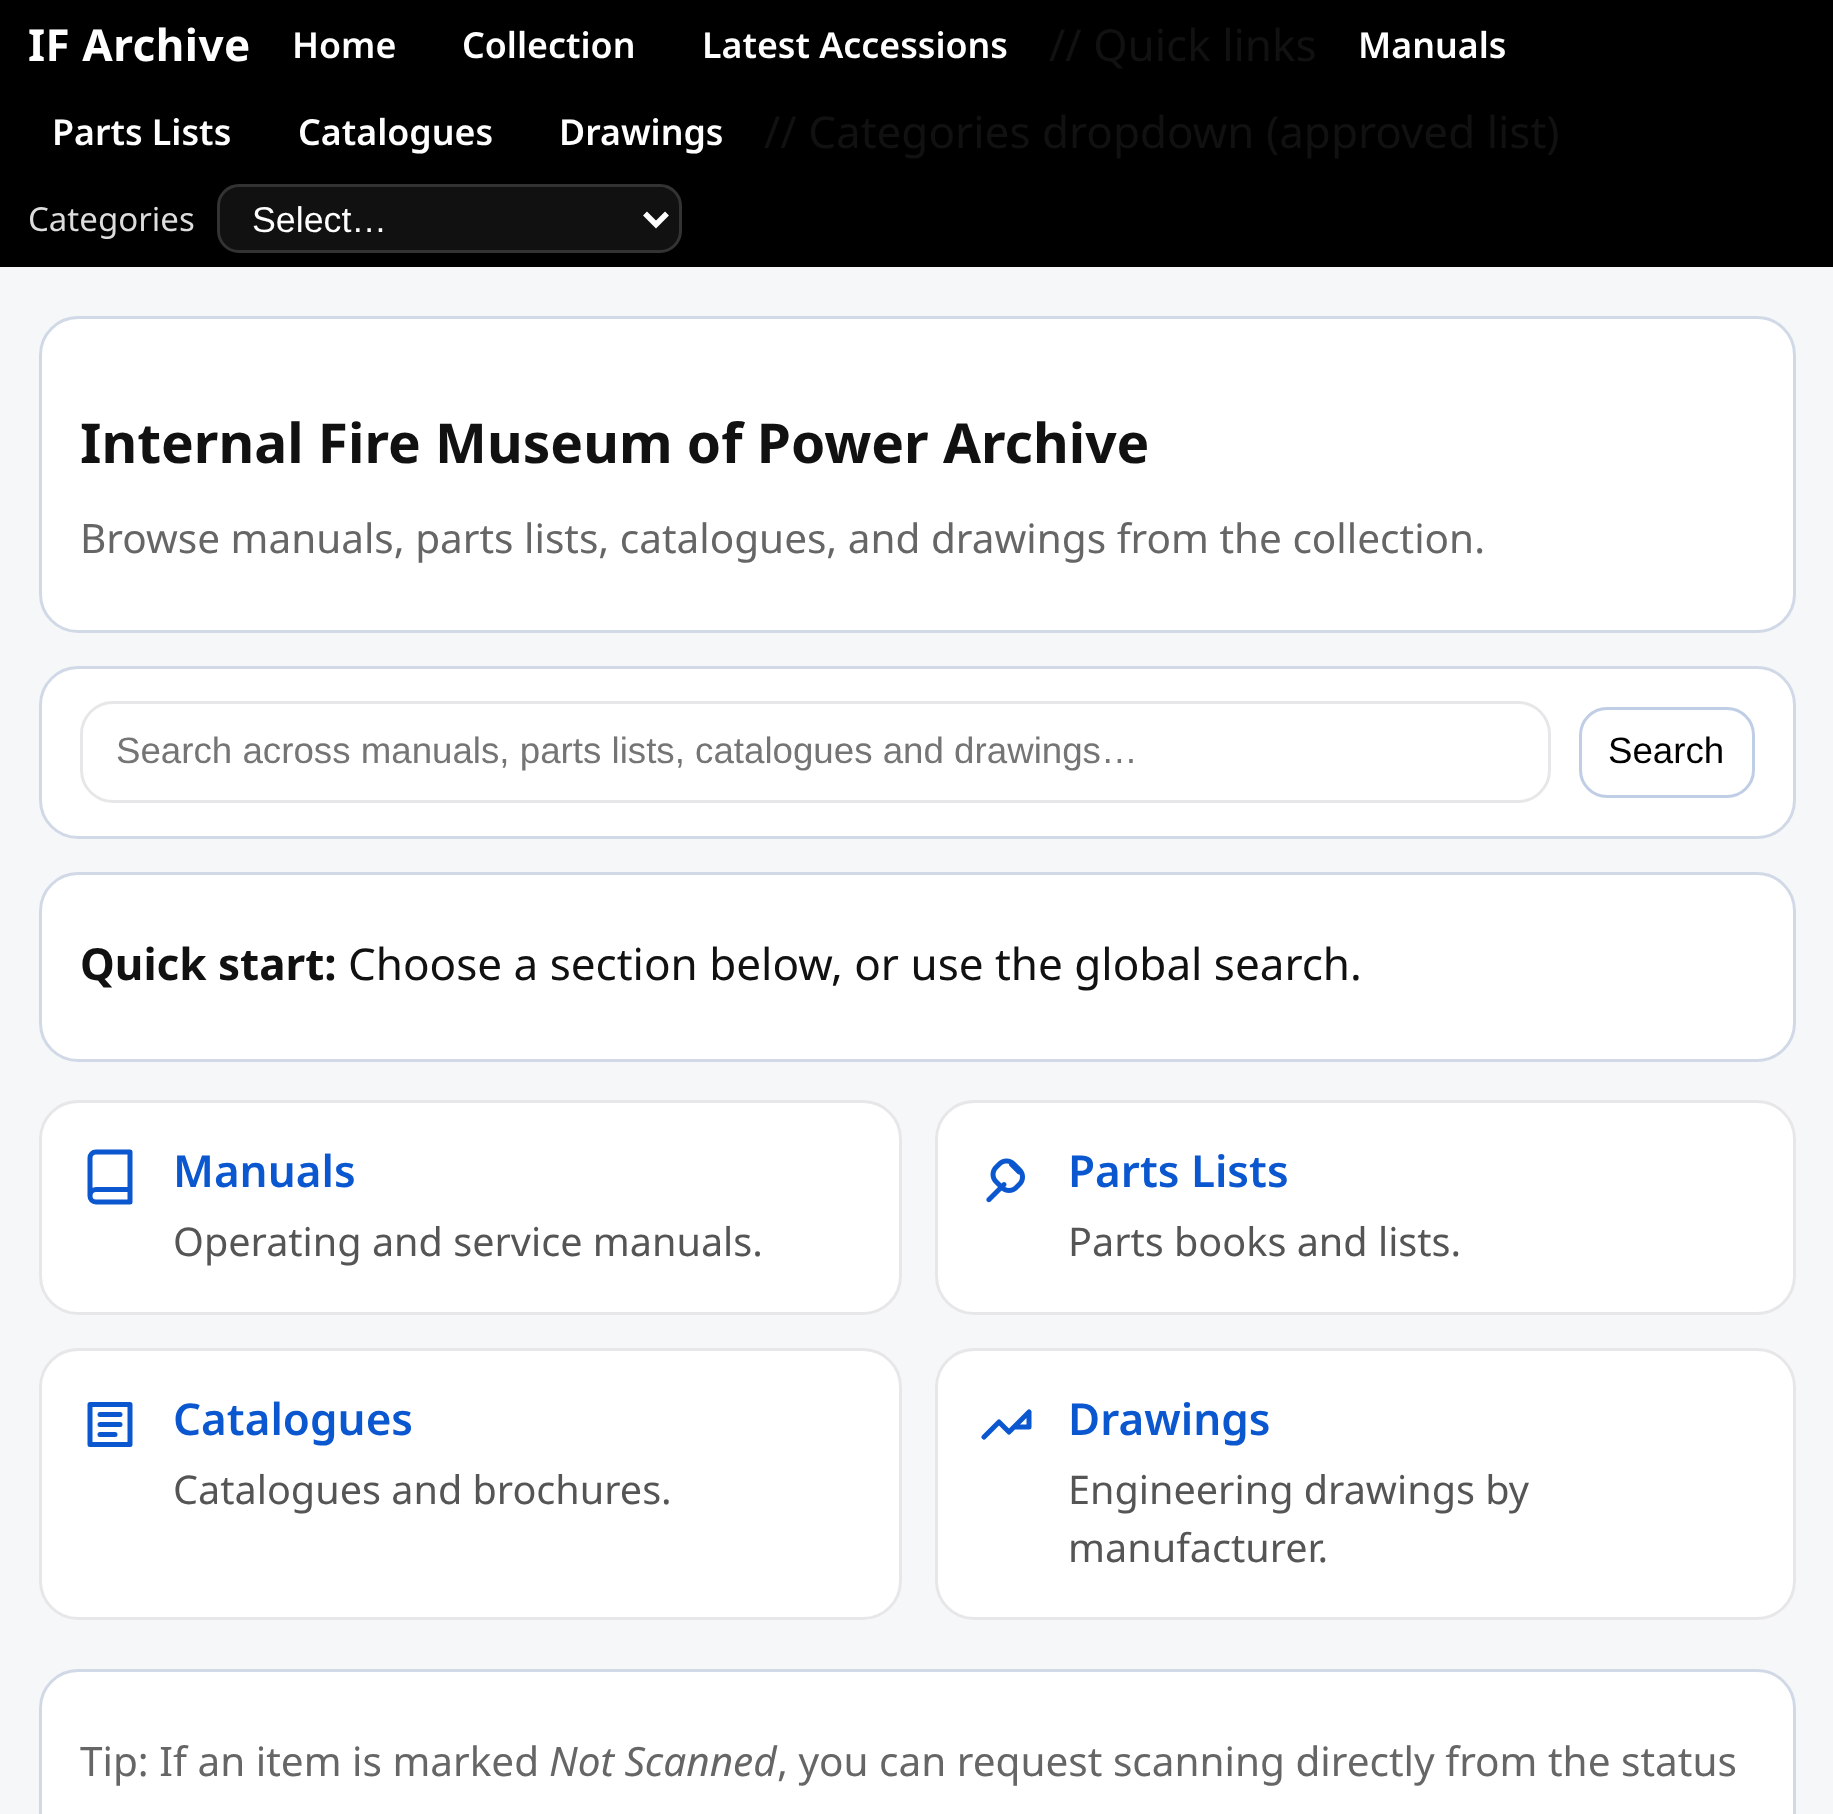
<svg xmlns="http://www.w3.org/2000/svg" width="1833" height="1814" viewBox="0 0 1833 1814">
  <rect width="100%" height="100%" fill="#f6f7f9"/>
  <rect x="0" y="0" width="1833" height="267" fill="#000000"/>
  <text x="28" y="61" font-family="Noto Sans" font-size="44" font-weight="bold" letter-spacing="0.5" fill="#ffffff">IF Archive</text>
  <text x="292" y="58" font-family="Noto Sans" font-size="35.75" font-weight="600" fill="#ffffff">Home</text>
  <text x="462" y="58" font-family="Noto Sans" font-size="35.75" font-weight="600" fill="#ffffff">Collection</text>
  <text x="702" y="58" font-family="Noto Sans" font-size="35.75" font-weight="600" fill="#ffffff">Latest Accessions</text>
  <text x="1049" y="61" font-family="Noto Sans" font-size="44" fill="#111111">// Quick links</text>
  <text x="1358" y="58" font-family="Noto Sans" font-size="35.75" font-weight="600" fill="#ffffff">Manuals</text>
  <text x="52" y="145" font-family="Noto Sans" font-size="35.75" font-weight="600" fill="#ffffff">Parts Lists</text>
  <text x="298" y="145" font-family="Noto Sans" font-size="35.75" font-weight="600" fill="#ffffff">Catalogues</text>
  <text x="559" y="145" font-family="Noto Sans" font-size="35.75" font-weight="600" fill="#ffffff">Drawings</text>
  <text x="764" y="148" font-family="Noto Sans" font-size="44" fill="#111111">// Categories dropdown (approved list)</text>
  <text x="28" y="231" font-family="Noto Sans" font-size="33" fill="#dddddd">Categories</text>
  <rect x="218.5" y="185.5" width="462" height="66" rx="20.5" fill="#111111" stroke="#333333" stroke-width="3"/>
  <path d="M645 213.5L656 224.5L667 213.5" fill="none" stroke="#ffffff" stroke-width="5.5"/>
  <text x="252" y="232" font-family="Liberation Sans" font-size="35.75" fill="#ffffff">Select…</text>
  <rect x="40.5" y="317.5" width="1754" height="314" rx="37.5" fill="#ffffff" stroke="#d1d9e7" stroke-width="3"/>
  <text x="80" y="463" font-family="Noto Sans" font-size="55" font-weight="bold" fill="#111111">Internal Fire Museum of Power Archive</text>
  <text x="80" y="553" font-family="Noto Sans" font-size="40.5" fill="#666666">Browse manuals, parts lists, catalogues, and drawings from the collection.</text>
  <rect x="40.5" y="667.5" width="1754" height="170" rx="37.5" fill="#ffffff" stroke="#d1d9e7" stroke-width="3"/>
  <rect x="81.5" y="702.5" width="1468" height="99" rx="31.5" fill="none" stroke="#e7e7ea" stroke-width="3"/>
  <text x="116" y="763" font-family="Liberation Sans" font-size="36.7" fill="#757575">Search across manuals, parts lists, catalogues and drawings…</text>
  <rect x="1580.5" y="708.5" width="173" height="88" rx="26.5" fill="none" stroke="#bfcde5" stroke-width="3"/>
  <text x="1608" y="763" font-family="Liberation Sans" font-size="36.7" fill="#000000">Search</text>
  <rect x="40.5" y="873.5" width="1754" height="187" rx="37.5" fill="#ffffff" stroke="#d1d9e7" stroke-width="3"/>
  <text x="80" y="980" font-family="Noto Sans" font-size="44" font-weight="bold" fill="#111111">Quick start:</text>
  <text x="348" y="980" font-family="Noto Sans" font-size="44" fill="#111111">Choose a section below, or use the global search.</text>
  <rect x="40.5" y="1101.5" width="860" height="212" rx="37.5" fill="#ffffff" stroke="#e7e7ea" stroke-width="3"/>
  <path d="M90 1196C90 1192.5 92.5 1189.5 96 1189.5H130M96 1152H130V1202H96C92.5 1202 90 1199.5 90 1196V1158C90 1154.5 92.5 1152 96 1152Z" fill="none" stroke="#0b57d0" stroke-width="5" stroke-linecap="round" stroke-linejoin="round"/>
  <text x="173" y="1187" font-family="Noto Sans" font-size="44" font-weight="600" fill="#0b57d0">Manuals</text>
  <text x="173" y="1256" font-family="Noto Sans" font-size="39.6" fill="#555555">Operating and service manuals.</text>
  <rect x="936.5" y="1101.5" width="858" height="212" rx="37.5" fill="#ffffff" stroke="#e7e7ea" stroke-width="3"/>
  <image x="986" y="1158" width="39" height="45" href="img1.png"/>
  <text x="1068" y="1187" font-family="Noto Sans" font-size="44" font-weight="600" fill="#0b57d0">Parts Lists</text>
  <text x="1068" y="1256" font-family="Noto Sans" font-size="39.6" fill="#555555">Parts books and lists.</text>
  <rect x="40.5" y="1349.5" width="860" height="269" rx="37.5" fill="#ffffff" stroke="#e7e7ea" stroke-width="3"/>
  <path d="M90 1404.5H130V1444.5H90ZM100 1414.5H120M100 1424.5H120M100 1434.5H115" fill="none" stroke="#0b57d0" stroke-width="5" stroke-linecap="round" stroke-linejoin="round"/>
  <text x="173" y="1435" font-family="Noto Sans" font-size="44" font-weight="600" fill="#0b57d0">Catalogues</text>
  <text x="173" y="1504" font-family="Noto Sans" font-size="39.6" fill="#555555">Catalogues and brochures.</text>
  <rect x="936.5" y="1349.5" width="858" height="269" rx="37.5" fill="#ffffff" stroke="#e7e7ea" stroke-width="3"/>
  <path d="M984 1437L999 1422L1009 1432L1029 1412M1029 1412V1427H1014" fill="none" stroke="#0b57d0" stroke-width="5" stroke-linecap="round" stroke-linejoin="round"/>
  <text x="1068" y="1435" font-family="Noto Sans" font-size="44" font-weight="600" fill="#0b57d0">Drawings</text>
  <text x="1068" y="1504" font-family="Noto Sans" font-size="39.6" fill="#555555">Engineering drawings by</text>
  <text x="1068" y="1562" font-family="Noto Sans" font-size="39.6" fill="#555555">manufacturer.</text>
  <rect x="40.5" y="1670.5" width="1754" height="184" rx="37.5" fill="#ffffff" stroke="#d1d9e7" stroke-width="3"/>
  <text x="80" y="1776" font-family="Noto Sans" font-size="40.5" fill="#666666">Tip: If an item is marked</text>
  <text x="549" y="1776" font-family="Noto Sans" font-size="40.5" font-style="italic" fill="#666666">Not Scanned</text>
  <text x="777" y="1776" font-family="Noto Sans" font-size="40.5" fill="#666666">, you can request scanning directly from the status</text>
</svg>
